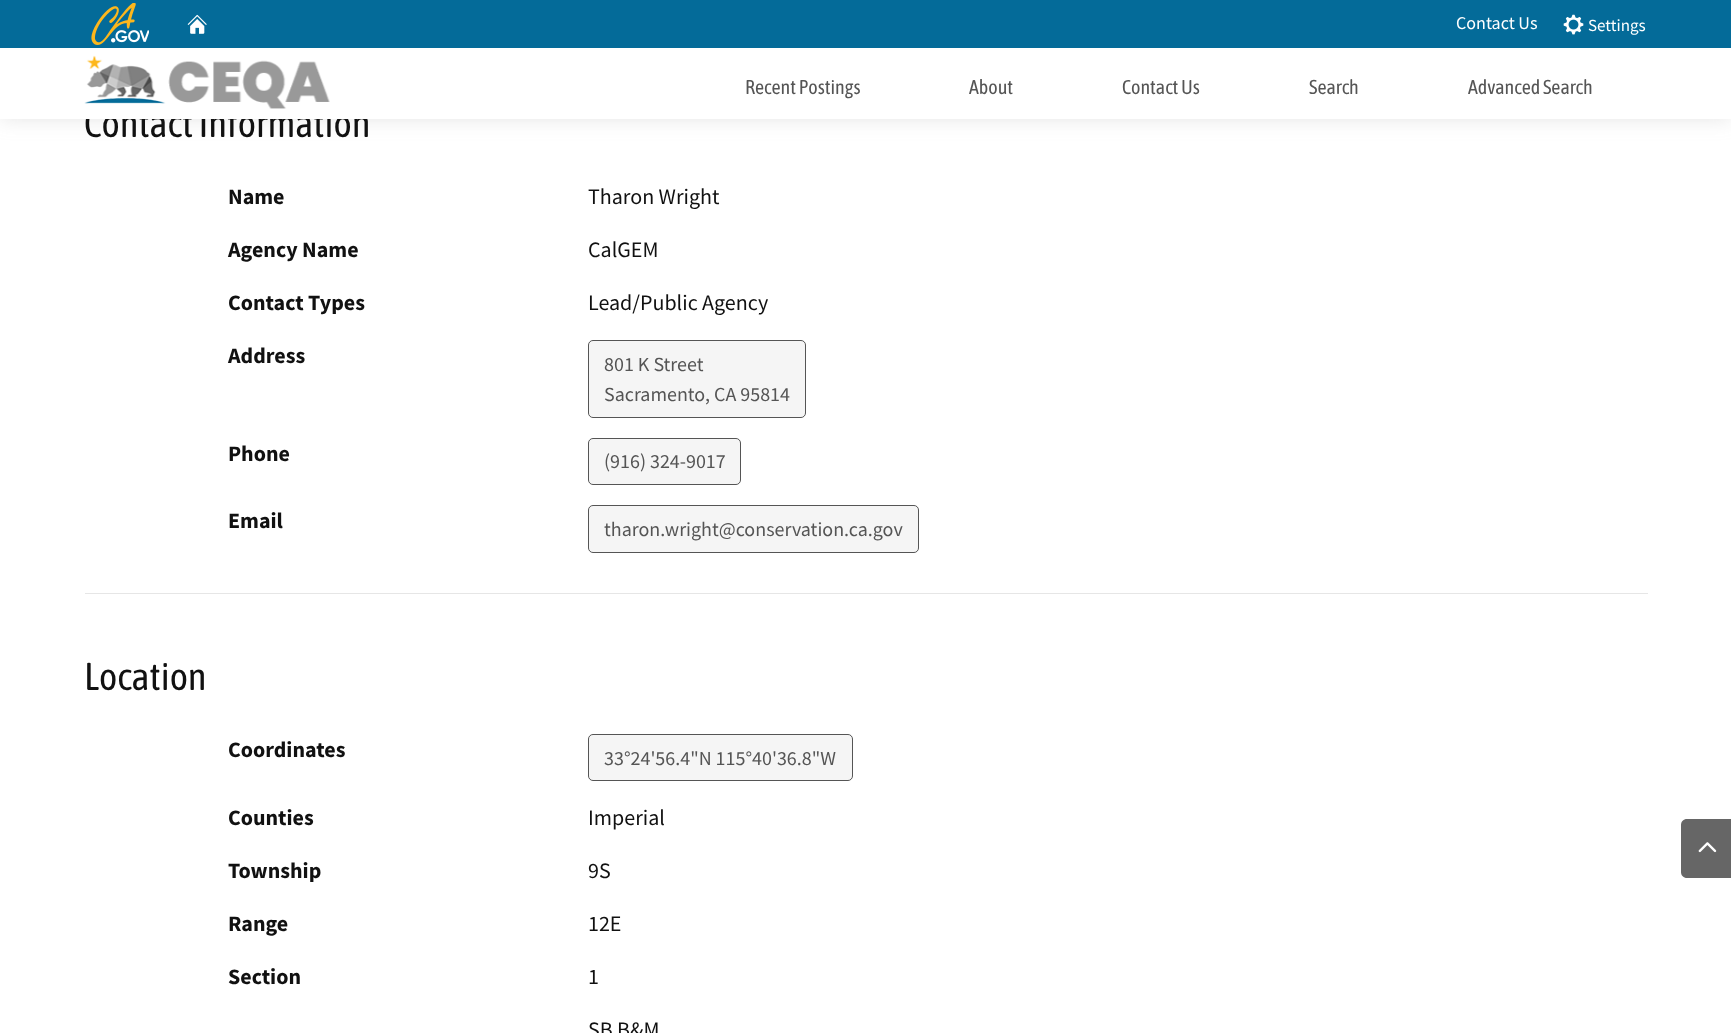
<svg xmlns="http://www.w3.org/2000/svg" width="1731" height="1033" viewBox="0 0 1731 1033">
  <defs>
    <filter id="blur1" x="-50%" y="-200%" width="200%" height="500%"><feGaussianBlur stdDeviation="9.5"/></filter>
  </defs>
  <rect width="100%" height="100%" fill="#ffffff"/>
  <rect x="0" y="0" width="1731" height="119" fill="#bdbdbd" fill-opacity="0.4" filter="url(#blur1)"/>
  <text x="84" y="137" font-family="Asap Condensed" font-size="38.75" fill="#111111">Contact Information</text>
  <rect x="0" y="48" width="1731" height="71" fill="#ffffff"/>
  <rect x="0" y="0" width="1731" height="48" fill="#046b99"/>
  <image x="91" y="3" width="58" height="42" href="img1.png"/>
  <image x="187" y="14" width="20" height="20" href="img2.png"/>
  <text x="1456" y="29" font-family="Source Sans Pro" font-size="18" fill="#ffffff">Contact Us</text>
  <image x="1563" y="14" width="21" height="21" href="img3.png"/>
  <text x="1588" y="31" font-family="Source Sans Pro" font-size="17" fill="#ffffff">Settings</text>
  <image x="84" y="55" width="246" height="54" href="img4.png"/>
  <text x="745" y="94" font-family="Asap Condensed" font-size="20" fill="#555555">Recent Postings</text>
  <text x="969" y="94" font-family="Asap Condensed" font-size="20" fill="#555555">About</text>
  <text x="1122" y="94" font-family="Asap Condensed" font-size="20" fill="#555555">Contact Us</text>
  <text x="1309" y="94" font-family="Asap Condensed" font-size="20" fill="#555555">Search</text>
  <text x="1468" y="94" font-family="Asap Condensed" font-size="20" fill="#555555">Advanced Search</text>
  <text x="228" y="204" font-family="Source Sans Pro" font-size="22" font-weight="bold" fill="#111111">Name</text>
  <text x="588" y="204" font-family="Source Sans Pro" font-size="22" fill="#111111">Tharon Wright</text>
  <text x="228" y="257" font-family="Source Sans Pro" font-size="22" font-weight="bold" fill="#111111">Agency Name</text>
  <text x="588" y="257" font-family="Source Sans Pro" font-size="22" fill="#111111">CalGEM</text>
  <text x="228" y="310" font-family="Source Sans Pro" font-size="22" font-weight="bold" fill="#111111">Contact Types</text>
  <text x="588" y="310" font-family="Source Sans Pro" font-size="22" fill="#111111">Lead/Public Agency</text>
  <text x="228" y="363" font-family="Source Sans Pro" font-size="22" font-weight="bold" fill="#111111">Address</text>
  <rect x="588.5" y="340.5" width="217" height="77" rx="4.5" fill="#f5f5f5" stroke="#555555"/>
  <text x="604" y="371" font-family="Source Sans Pro" font-size="20" fill="#555555">801 K Street</text>
  <text x="604" y="401" font-family="Source Sans Pro" font-size="20" fill="#555555">Sacramento, CA 95814</text>
  <text x="228" y="461" font-family="Source Sans Pro" font-size="22" font-weight="bold" fill="#111111">Phone</text>
  <rect x="588.5" y="438.5" width="152" height="46" rx="4.5" fill="#f5f5f5" stroke="#555555"/>
  <text x="604" y="468" font-family="Source Sans Pro" font-size="20" fill="#555555">(916) 324-9017</text>
  <text x="228" y="528" font-family="Source Sans Pro" font-size="22" font-weight="bold" fill="#111111">Email</text>
  <rect x="588.5" y="505.5" width="330" height="47" rx="4.5" fill="#f5f5f5" stroke="#555555"/>
  <text x="604" y="536" font-family="Source Sans Pro" font-size="20" fill="#555555">tharon.wright@conservation.ca.gov</text>
  <rect x="85" y="593" width="1563" height="1" fill="#e6e6e6"/>
  <text x="84" y="690" font-family="Asap Condensed" font-size="38.75" fill="#111111">Location</text>
  <text x="228" y="757" font-family="Source Sans Pro" font-size="22" font-weight="bold" fill="#111111">Coordinates</text>
  <rect x="588.5" y="734.5" width="264" height="46" rx="4.5" fill="#f5f5f5" stroke="#555555"/>
  <text x="604" y="765" font-family="Source Sans Pro" font-size="20" fill="#555555">33°24'56.4"N 115°40'36.8"W</text>
  <text x="228" y="825" font-family="Source Sans Pro" font-size="22" font-weight="bold" fill="#111111">Counties</text>
  <text x="588" y="825" font-family="Source Sans Pro" font-size="22" fill="#111111">Imperial</text>
  <text x="228" y="878" font-family="Source Sans Pro" font-size="22" font-weight="bold" fill="#111111">Township</text>
  <text x="588" y="878" font-family="Source Sans Pro" font-size="22" fill="#111111">9S</text>
  <text x="228" y="931" font-family="Source Sans Pro" font-size="22" font-weight="bold" fill="#111111">Range</text>
  <text x="588" y="931" font-family="Source Sans Pro" font-size="22" fill="#111111">12E</text>
  <text x="228" y="984" font-family="Source Sans Pro" font-size="22" font-weight="bold" fill="#111111">Section</text>
  <text x="588" y="984" font-family="Source Sans Pro" font-size="22" fill="#111111">1</text>
  <text x="588" y="1037" font-family="Source Sans Pro" font-size="22" fill="#111111">SB B&amp;M</text>
  <path d="M1687 819H1731V878H1687C1683.5 878 1681 875.5 1681 872V825C1681 821.5 1683.5 819 1687 819Z" fill="#666666"/>
  <image x="1698" y="842" width="19" height="11" href="img5.png"/>
</svg>
